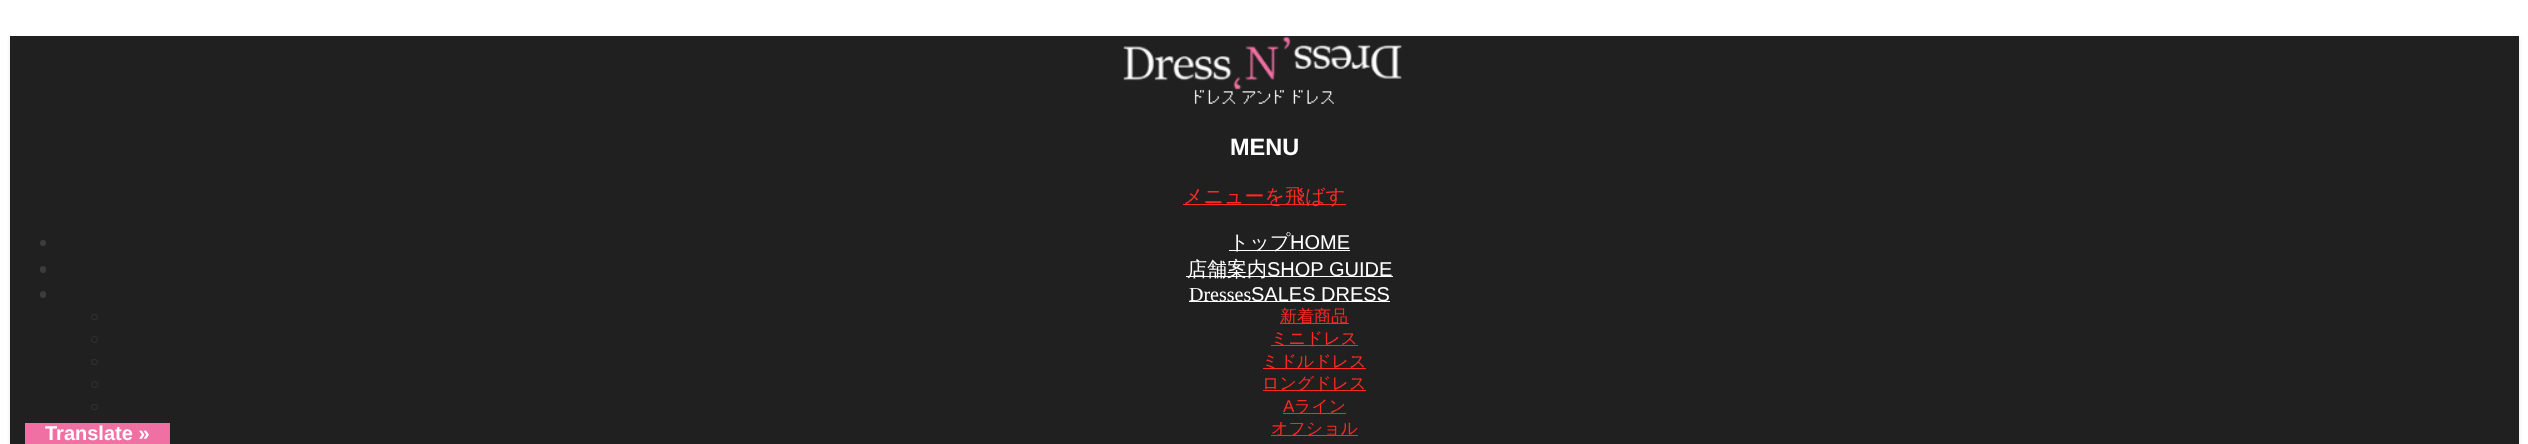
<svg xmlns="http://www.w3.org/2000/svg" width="2528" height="444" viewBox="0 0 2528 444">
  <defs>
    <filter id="blur1" x="-50%" y="-200%" width="200%" height="500%"><feGaussianBlur stdDeviation="2"/></filter>
  </defs>
  <rect width="100%" height="100%" fill="#ffffff"/>
  <rect x="10" y="38" width="2509" height="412" fill="#000000" fill-opacity="0.1" filter="url(#blur1)"/>
  <rect x="10" y="36" width="2509" height="408" fill="#212020"/>
  <rect x="25" y="423" width="145" height="21" fill="#f170a4"/>
  <text x="45" y="440" font-family="Liberation Sans" font-size="20" font-weight="bold" fill="#ffffff">Translate »</text>
  <image x="1123" y="36" width="279" height="68" href="img1.png"/>
  <text x="1230" y="155" font-family="Liberation Sans" font-size="23.5" font-weight="bold" fill="#ffffff">MENU</text>
  <rect x="1183" y="204" width="163" height="1" fill="#ff2924"/>
  <text x="1183" y="203" font-family="WenQuanYi Zen Hei" font-size="20" font-weight="500" fill="#ff2924">メニューを飛ばす</text>
  <circle cx="43" cy="243" r="3" fill="#3c3c3c"/>
  <rect x="1229" y="250" width="61" height="1" fill="#ffffff"/>
  <text x="1229" y="249" font-family="WenQuanYi Zen Hei" font-size="20" font-weight="500" fill="#ffffff">トップ</text>
  <text x="1290" y="249" font-family="Liberation Sans" font-size="20" fill="#ffffff">HOME</text>
  <rect x="1290" y="250" width="60" height="1" fill="#ffffff"/>
  <rect x="40" y="266" width="6" height="7" rx="3" fill="#3c3c3c"/>
  <rect x="1186" y="276" width="207" height="1" fill="#ffffff"/>
  <text x="1187" y="276" font-family="WenQuanYi Zen Hei" font-size="20" font-weight="500" fill="#ffffff">店舗案内</text>
  <text x="1267" y="276" font-family="Liberation Sans" font-size="20" fill="#ffffff">SHOP GUIDE</text>
  <rect x="40" y="291" width="6" height="7" rx="3" fill="#3c3c3c"/>
  <rect x="1189" y="301" width="201" height="1" fill="#ffffff"/>
  <text x="1189" y="301" font-family="Liberation Serif" font-size="20" fill="#ffffff">Dresses</text>
  <text x="1251" y="301" font-family="Liberation Sans" font-size="20" fill="#ffffff">SALES DRESS</text>
  <rect x="91.5" y="314.5" width="6" height="5" rx="2.5" fill="none" stroke="#333333"/>
  <rect x="1280" y="323" width="69" height="1" fill="#ff2924"/>
  <text x="1280" y="322" font-family="WenQuanYi Zen Hei" font-size="17" font-weight="500" fill="#ff2924">新着商品</text>
  <circle cx="94.5" cy="339.5" r="3" fill="none" stroke="#333333"/>
  <rect x="1271" y="345" width="87" height="1" fill="#ff2924"/>
  <text x="1271" y="344" font-family="WenQuanYi Zen Hei" font-size="17" font-weight="500" fill="#ff2924">ミニドレス</text>
  <rect x="91.5" y="359.5" width="6" height="5" rx="2.5" fill="none" stroke="#333333"/>
  <rect x="1263" y="368" width="103" height="1" fill="#ff2924"/>
  <text x="1262" y="367" font-family="WenQuanYi Zen Hei" font-size="17" font-weight="500" fill="#ff2924">ミドルドレス</text>
  <circle cx="94.5" cy="384.5" r="3" fill="none" stroke="#333333"/>
  <rect x="1263" y="390" width="103" height="1" fill="#ff2924"/>
  <text x="1262" y="389" font-family="WenQuanYi Zen Hei" font-size="17" font-weight="500" fill="#ff2924">ロングドレス</text>
  <rect x="91.5" y="404.5" width="6" height="5" rx="2.5" fill="none" stroke="#333333"/>
  <text x="1283" y="412" font-family="Liberation Sans" font-size="17" fill="#ff2924">A</text>
  <rect x="1283" y="413" width="63" height="1" fill="#ff2924"/>
  <text x="1294" y="412" font-family="WenQuanYi Zen Hei" font-size="17" font-weight="500" fill="#ff2924">ライン</text>
  <rect x="1271" y="435" width="87" height="1" fill="#ff2924"/>
  <text x="1271" y="434" font-family="WenQuanYi Zen Hei" font-size="17" font-weight="500" fill="#ff2924">オフショル</text>
</svg>
